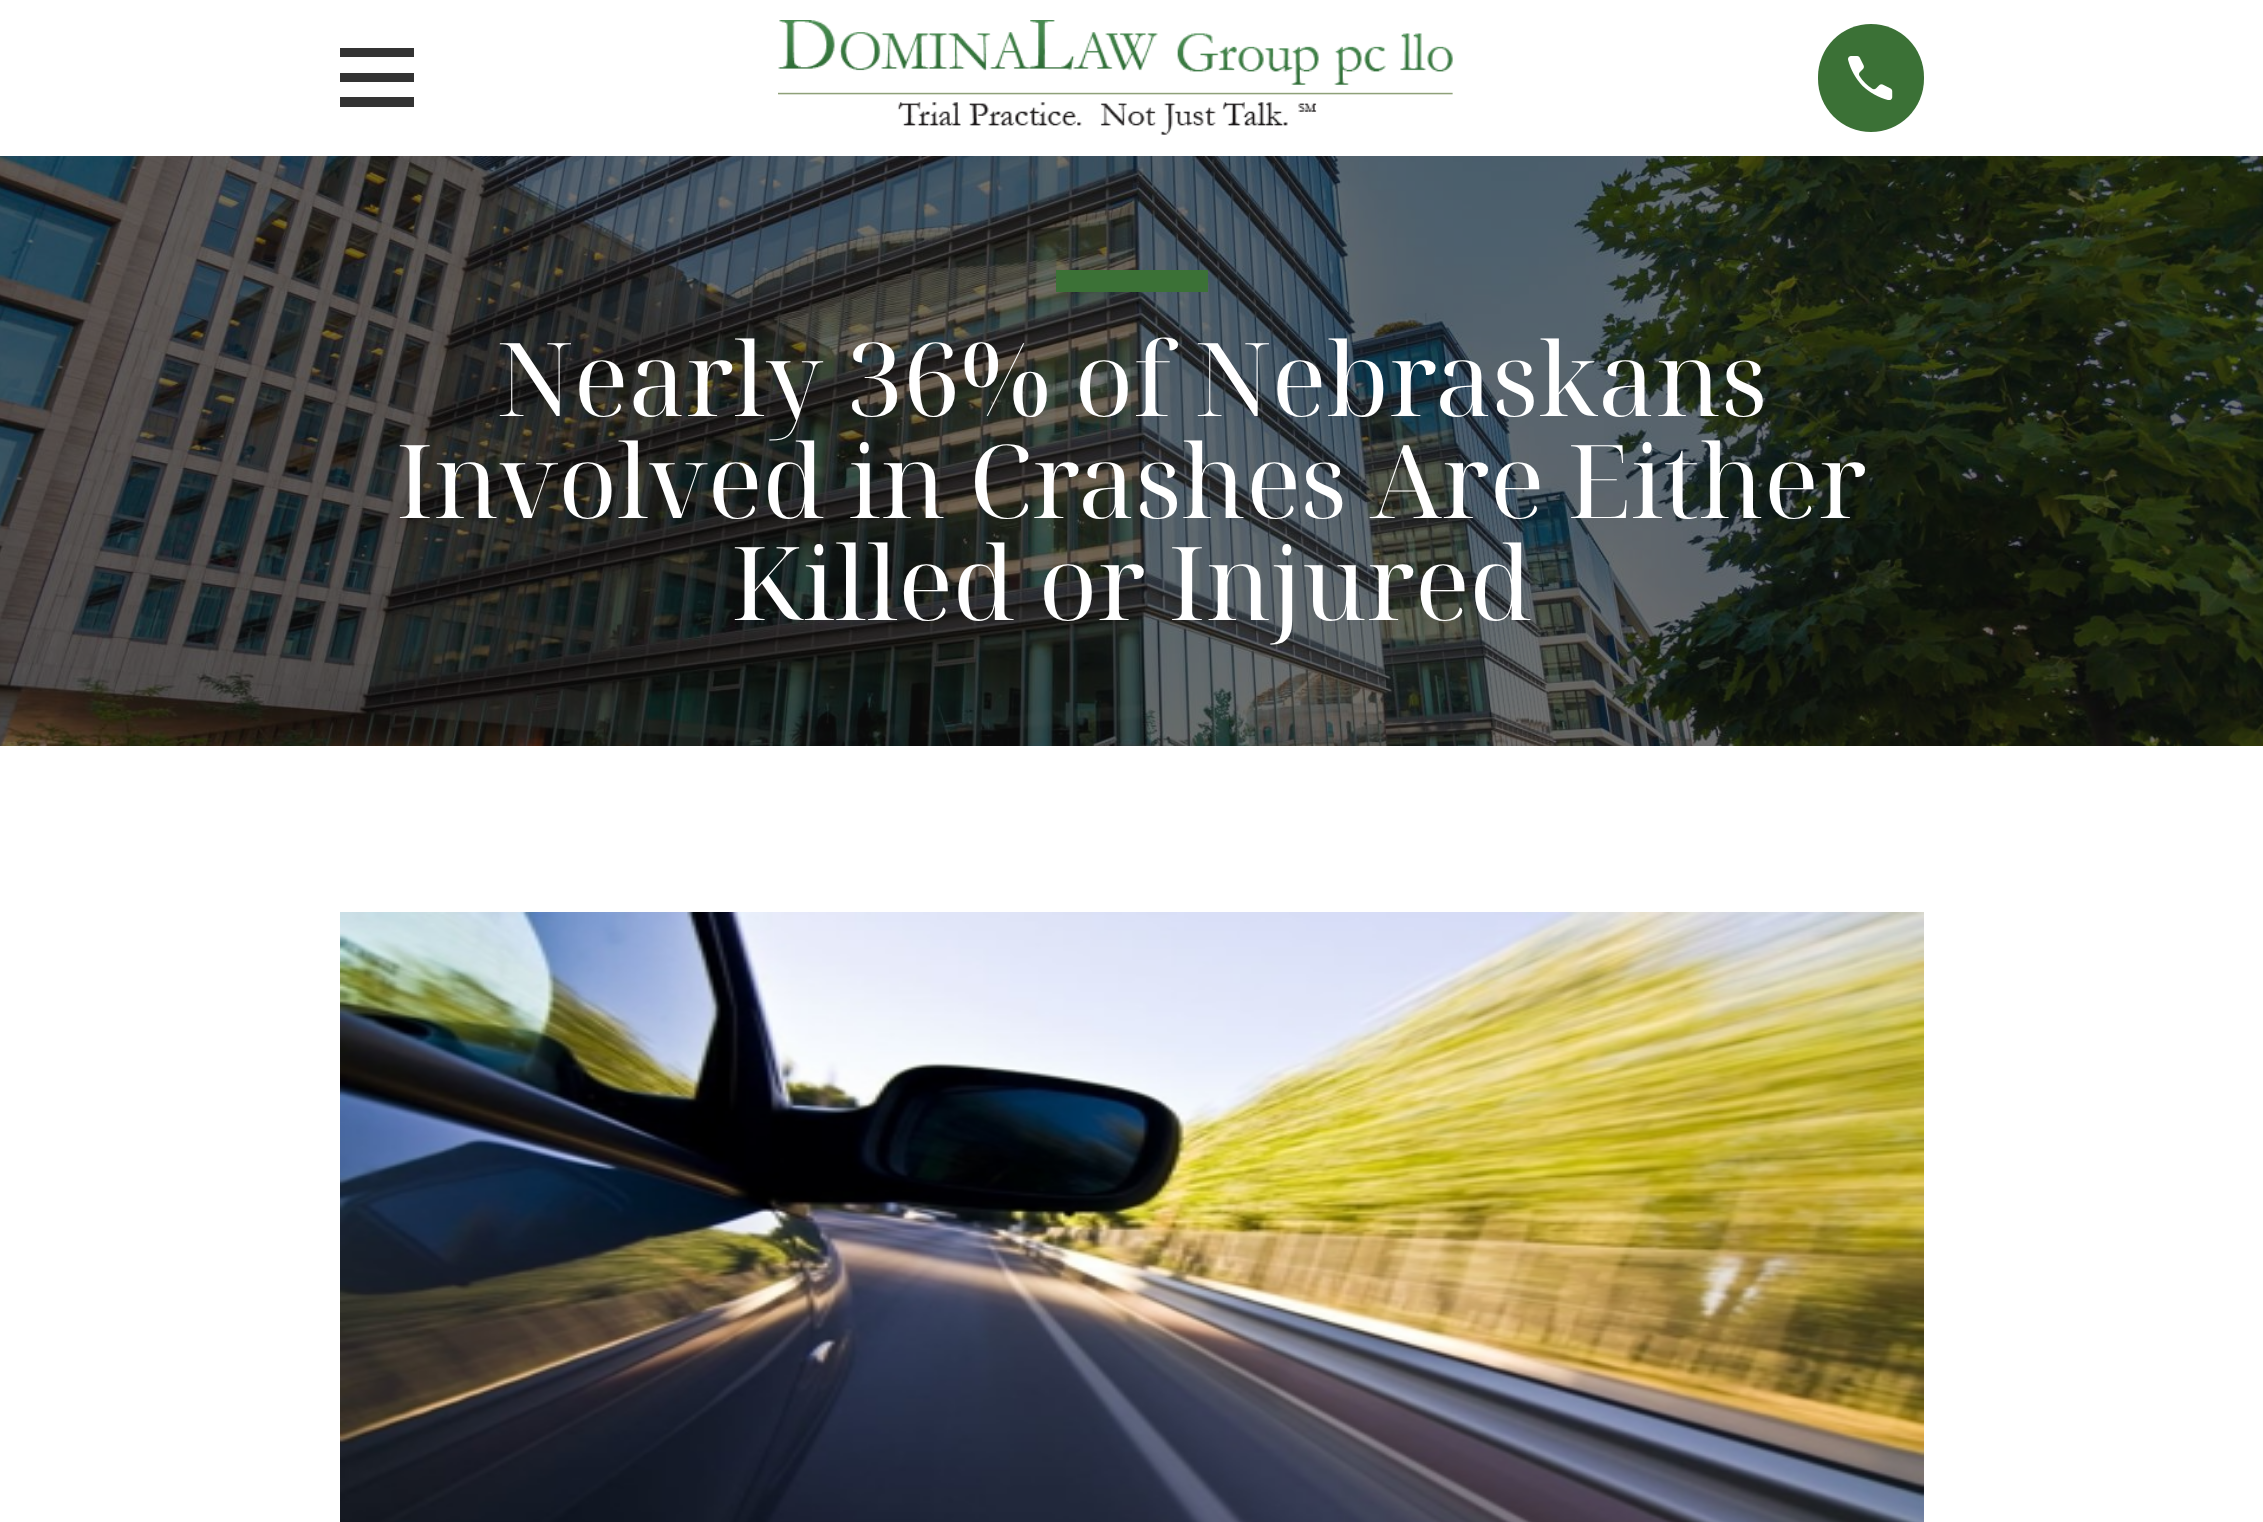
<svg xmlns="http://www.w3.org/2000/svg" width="2263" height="1522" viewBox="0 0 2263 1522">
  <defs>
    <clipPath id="clip1"><rect x="340" y="40" width="74" height="76"/></clipPath>
  </defs>
  <rect width="100%" height="100%" fill="#ffffff"/>
  <g clip-path="url(#clip1)">
    <path d="M340 48V57H415V48ZM340 73V82H415V73ZM340 97V107H415V97Z" fill="#333333"/>
  </g>
  <image x="778" y="20" width="675" height="115" href="img1.png"/>
  <rect x="1818" y="24" width="106" height="108" rx="53" fill="#3b7136"/>
  <image x="1848" y="56" width="45" height="44" href="img2.png"/>
  <rect x="0" y="156" width="2263" height="590" fill="#111111"/>
  <image x="0" y="156" width="2263" height="590" href="img3.png"/>
  <rect x="1056" y="270" width="152" height="22" fill="#3b7136"/>
  <text x="496" y="416" font-family="Noto Serif Display" font-size="102" fill="#ffffff">Nearly 36% of Nebraskans</text>
  <text x="396" y="518" font-family="Noto Serif Display" font-size="102" fill="#ffffff">Involved in Crashes Are Either</text>
  <text x="731" y="620" font-family="Noto Serif Display" font-size="102" fill="#ffffff">Killed or Injured</text>
  <image x="340" y="912" width="1584" height="610" href="img4.png"/>
</svg>
